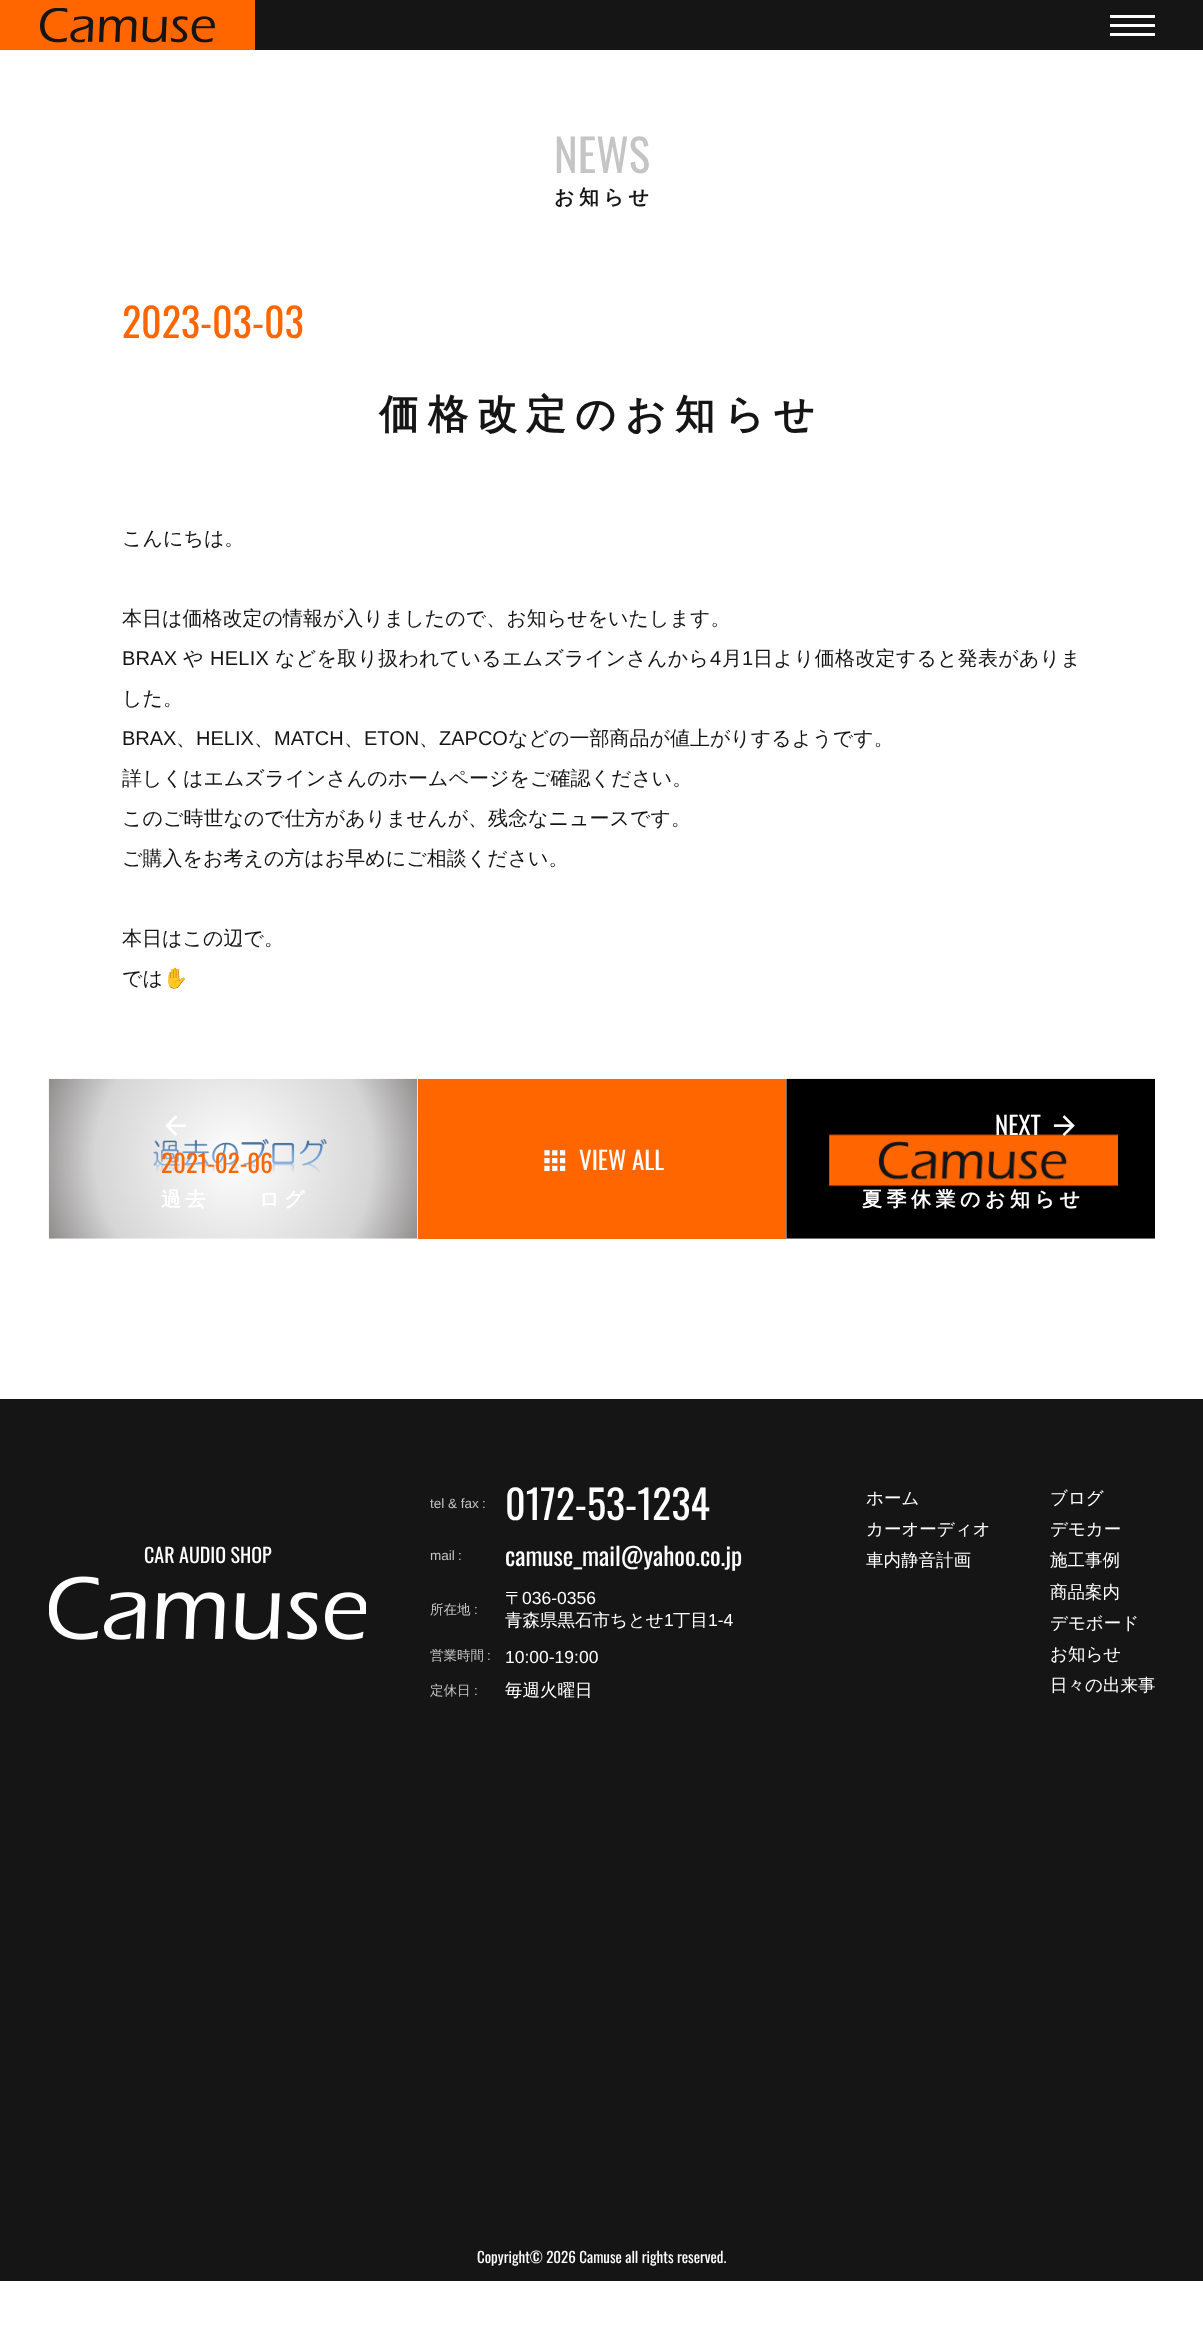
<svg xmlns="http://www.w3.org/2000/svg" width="1203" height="2337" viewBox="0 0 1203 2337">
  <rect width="100%" height="100%" fill="#ffffff"/>
  <rect x="255" y="0" width="948" height="50" fill="#151515"/>
  <rect x="0" y="0" width="255" height="50" fill="#ff6600"/>
  <image x="40" y="8" width="175" height="35" href="img1.png"/>
  <rect x="1110" y="15" width="45" height="3" fill="#ffffff"/>
  <rect x="1110" y="24" width="45" height="3" fill="#ffffff"/>
  <rect x="1110" y="33" width="45" height="3" fill="#ffffff"/>
  <text x="554" y="173" font-family="Oswald" font-size="45" fill="#c5c5c5">NEWS</text>
  <text x="554" y="204" font-family="WenQuanYi Zen Hei" font-size="20" font-weight="bold" letter-spacing="4.5" fill="#151515">お知らせ</text>
  <text x="122" y="338" font-family="Oswald" font-size="40" fill="#ff6600">2023-03-03</text>
  <text x="379" y="428" font-family="WenQuanYi Zen Hei" font-size="40" font-weight="bold" letter-spacing="9" fill="#151515">価格改定のお知らせ</text>
  <text x="122" y="545" font-family="WenQuanYi Zen Hei" font-size="20" font-weight="500" fill="#151515">こんにちは。</text>
  <text x="122" y="625" font-family="WenQuanYi Zen Hei" font-size="20" font-weight="500" fill="#151515">本日は価格改定の情報が入りましたので、お知らせをいたします。</text>
  <text x="122" y="665" font-family="Liberation Sans" font-size="20" letter-spacing="0.25" fill="#151515">BRAX</text>
  <text x="183" y="665" font-family="WenQuanYi Zen Hei" font-size="20" font-weight="500" letter-spacing="0.25" fill="#151515">や</text>
  <text x="210" y="665" font-family="Liberation Sans" font-size="20" letter-spacing="0.25" fill="#151515">HELIX</text>
  <text x="275" y="665" font-family="WenQuanYi Zen Hei" font-size="20" font-weight="500" letter-spacing="0.25" fill="#151515">などを取り扱われているエムズラインさんから</text>
  <text x="710" y="665" font-family="Liberation Sans" font-size="20" letter-spacing="0.25" fill="#151515">4</text>
  <text x="722" y="665" font-family="WenQuanYi Zen Hei" font-size="20" font-weight="500" letter-spacing="0.25" fill="#151515">月</text>
  <text x="742" y="665" font-family="Liberation Sans" font-size="20" letter-spacing="0.25" fill="#151515">1</text>
  <text x="753" y="665" font-family="WenQuanYi Zen Hei" font-size="20" font-weight="500" letter-spacing="0.25" fill="#151515">日より価格改定すると発表がありま</text>
  <text x="122" y="705" font-family="WenQuanYi Zen Hei" font-size="20" font-weight="500" fill="#151515">した。</text>
  <text x="122" y="745" font-family="Liberation Sans" font-size="20" fill="#151515">BRAX</text>
  <text x="176" y="745" font-family="WenQuanYi Zen Hei" font-size="20" font-weight="500" fill="#151515">、</text>
  <text x="196" y="745" font-family="Liberation Sans" font-size="20" fill="#151515">HELIX</text>
  <text x="254" y="745" font-family="WenQuanYi Zen Hei" font-size="20" font-weight="500" fill="#151515">、</text>
  <text x="274" y="745" font-family="Liberation Sans" font-size="20" fill="#151515">MATCH</text>
  <text x="344" y="745" font-family="WenQuanYi Zen Hei" font-size="20" font-weight="500" fill="#151515">、</text>
  <text x="364" y="745" font-family="Liberation Sans" font-size="20" fill="#151515">ETON</text>
  <text x="419" y="745" font-family="WenQuanYi Zen Hei" font-size="20" font-weight="500" fill="#151515">、</text>
  <text x="439" y="745" font-family="Liberation Sans" font-size="20" fill="#151515">ZAPCO</text>
  <text x="508" y="745" font-family="WenQuanYi Zen Hei" font-size="20" font-weight="500" fill="#151515">などの一部商品が値上がりするようです。</text>
  <text x="122" y="785" font-family="WenQuanYi Zen Hei" font-size="20" font-weight="500" fill="#151515">詳しくはエムズラインさんのホームページをご確認ください。</text>
  <text x="122" y="825" font-family="WenQuanYi Zen Hei" font-size="20" font-weight="500" fill="#151515">このご時世なので仕方がありませんが、残念なニュースです。</text>
  <text x="122" y="865" font-family="WenQuanYi Zen Hei" font-size="20" font-weight="500" fill="#151515">ご購入をお考えの方はお早めにご相談ください。</text>
  <text x="122" y="945" font-family="WenQuanYi Zen Hei" font-size="20" font-weight="500" fill="#151515">本日はこの辺で。</text>
  <text x="122" y="985" font-family="WenQuanYi Zen Hei" font-size="20" font-weight="500" fill="#151515">では</text>
  <text x="163" y="985" font-family="Noto Color Emoji" font-size="20" fill="#151515">✋</text>
  <image x="48" y="1078" width="370" height="161" href="img2.png"/>
  <image x="165" y="1115" width="21" height="21" href="img3.png"/>
  <text x="161" y="1173" font-family="Oswald" font-size="25" fill="#ff6600">2021-02-06</text>
  <text x="161" y="1206" font-family="WenQuanYi Zen Hei" font-size="20" font-weight="bold" letter-spacing="4.5" fill="#ffffff">過去</text>
  <text x="259" y="1206" font-family="WenQuanYi Zen Hei" font-size="20" font-weight="bold" letter-spacing="4.5" fill="#ffffff">ログ</text>
  <rect x="418" y="1079" width="368" height="160" fill="#ff6600"/>
  <image x="544" y="1150" width="22" height="22" href="img4.png"/>
  <text x="579" y="1170" font-family="Oswald" font-size="25" fill="#ffffff">VIEW ALL</text>
  <image x="786" y="1078" width="369" height="161" href="img5.png"/>
  <text x="995" y="1135" font-family="Oswald" font-size="25" fill="#ffffff">NEXT</text>
  <image x="1053" y="1115" width="22" height="21" href="img6.png"/>
  <text x="862" y="1206" font-family="WenQuanYi Zen Hei" font-size="20" font-weight="bold" letter-spacing="4.5" fill="#ffffff">夏季休業のお知らせ</text>
  <rect x="0" y="1399" width="1203" height="882" fill="#151515"/>
  <text x="144" y="1563" font-family="Oswald" font-size="20" fill="#ffffff">CAR AUDIO SHOP</text>
  <image x="49" y="1576" width="317" height="64" href="img7.png"/>
  <text x="430" y="1508" font-family="Liberation Sans" font-size="13.5" fill="#c5c5c5">tel &amp; fax</text>
  <text x="482" y="1508" font-family="Liberation Sans" font-size="13.5" fill="#c5c5c5">:</text>
  <text x="505" y="1520" font-family="Oswald" font-size="40" fill="#ffffff">0172-53-1234</text>
  <text x="430" y="1560" font-family="Liberation Sans" font-size="13.5" fill="#c5c5c5">mail</text>
  <text x="458" y="1560" font-family="Liberation Sans" font-size="13.5" fill="#c5c5c5">:</text>
  <text x="505" y="1566" font-family="Oswald" font-size="25" fill="#ffffff">camuse_mail@yahoo.co.jp</text>
  <text x="430" y="1614" font-family="WenQuanYi Zen Hei" font-size="13.5" font-weight="500" fill="#c5c5c5">所在地</text>
  <text x="474" y="1614" font-family="Liberation Sans" font-size="13.5" fill="#c5c5c5">:</text>
  <text x="505" y="1604" font-family="WenQuanYi Zen Hei" font-size="17.5" font-weight="500" fill="#ffffff">〒</text>
  <text x="522" y="1604" font-family="Liberation Sans" font-size="17.5" fill="#ffffff">036-0356</text>
  <text x="505" y="1626" font-family="WenQuanYi Zen Hei" font-size="17.5" font-weight="500" fill="#ffffff">青森県黒石市ちとせ</text>
  <text x="664" y="1626" font-family="Liberation Sans" font-size="17.5" fill="#ffffff">1</text>
  <text x="673" y="1626" font-family="WenQuanYi Zen Hei" font-size="17.5" font-weight="500" fill="#ffffff">丁目</text>
  <text x="708" y="1626" font-family="Liberation Sans" font-size="17.5" fill="#ffffff">1-4</text>
  <text x="430" y="1660" font-family="WenQuanYi Zen Hei" font-size="13.5" font-weight="500" fill="#c5c5c5">営業時間</text>
  <text x="487" y="1660" font-family="Liberation Sans" font-size="13.5" fill="#c5c5c5">:</text>
  <text x="505" y="1663" font-family="Liberation Sans" font-size="17.5" fill="#ffffff">10:00-19:00</text>
  <text x="430" y="1695" font-family="WenQuanYi Zen Hei" font-size="13.5" font-weight="500" fill="#c5c5c5">定休日</text>
  <text x="474" y="1695" font-family="Liberation Sans" font-size="13.5" fill="#c5c5c5">:</text>
  <text x="505" y="1696" font-family="WenQuanYi Zen Hei" font-size="17.5" font-weight="500" fill="#ffffff">毎週火曜日</text>
  <text x="866" y="1504" font-family="WenQuanYi Zen Hei" font-size="17.5" font-weight="500" fill="#ffffff">ホーム</text>
  <text x="866" y="1535" font-family="WenQuanYi Zen Hei" font-size="17.5" font-weight="500" fill="#ffffff">カーオーディオ</text>
  <text x="866" y="1566" font-family="WenQuanYi Zen Hei" font-size="17.5" font-weight="500" fill="#ffffff">車内静音計画</text>
  <text x="1050" y="1504" font-family="WenQuanYi Zen Hei" font-size="17.5" font-weight="500" fill="#ffffff">ブログ</text>
  <text x="1050" y="1535" font-family="WenQuanYi Zen Hei" font-size="17.5" font-weight="500" fill="#ffffff">デモカー</text>
  <text x="1050" y="1566" font-family="WenQuanYi Zen Hei" font-size="17.5" font-weight="500" fill="#ffffff">施工事例</text>
  <text x="1050" y="1598" font-family="WenQuanYi Zen Hei" font-size="17.5" font-weight="500" fill="#ffffff">商品案内</text>
  <text x="1050" y="1629" font-family="WenQuanYi Zen Hei" font-size="17.5" font-weight="500" fill="#ffffff">デモボード</text>
  <text x="1050" y="1660" font-family="WenQuanYi Zen Hei" font-size="17.5" font-weight="500" fill="#ffffff">お知らせ</text>
  <text x="1050" y="1691" font-family="WenQuanYi Zen Hei" font-size="17.5" font-weight="500" fill="#ffffff">日々の出来事</text>
  <text x="477" y="2263" font-family="Oswald" font-size="15" fill="#ffffff">Copyright© 2026 Camuse all rights reserved.</text>
</svg>
